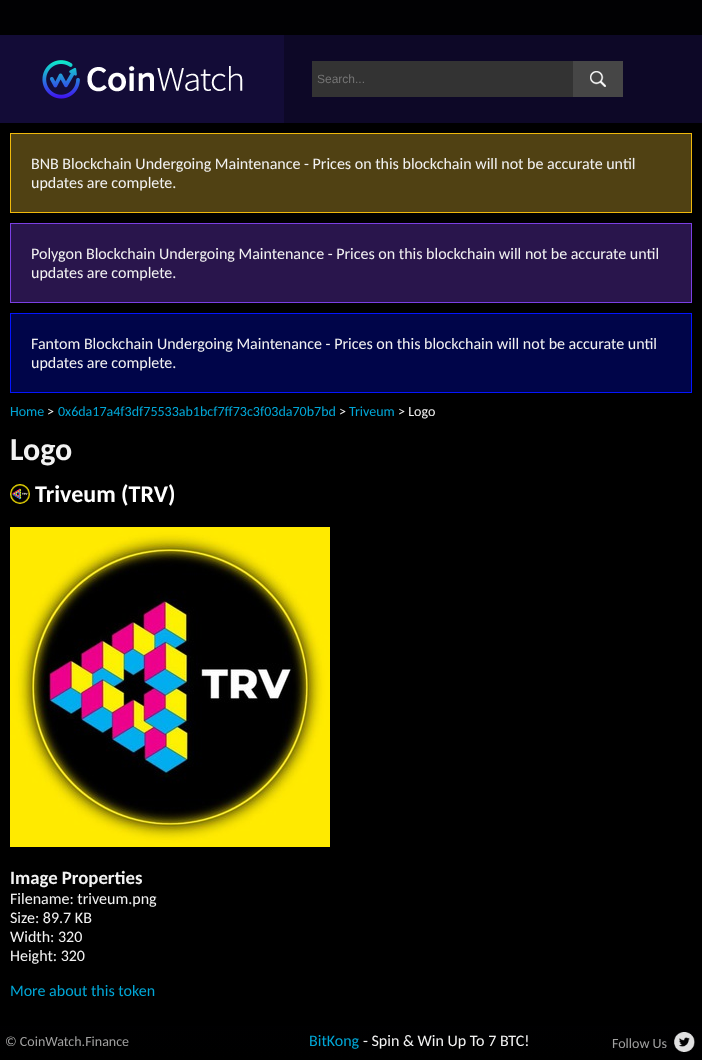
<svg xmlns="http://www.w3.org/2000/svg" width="702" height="1060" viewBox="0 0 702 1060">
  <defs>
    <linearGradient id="g1" gradientUnits="userSpaceOnUse" x1="351" y1="1060" x2="351" y2="0"><stop offset="0" stop-color="#000000"/><stop offset="1" stop-color="#0c0822"/></linearGradient>
  </defs>
  <rect width="100%" height="100%" fill="#ffffff"/>
  <rect x="0" y="1026" width="702" height="34" fill="url(#g1)"/>
  <rect x="0" y="0" width="702" height="35" fill="#010103"/>
  <rect x="284" y="35" width="418" height="88" fill="#0d0827"/>
  <rect x="0" y="35" width="284" height="88" fill="#130c37"/>
  <image x="42" y="60" width="201" height="39" href="img1.png"/>
  <rect x="312" y="61" width="261" height="36" fill="#333333"/>
  <text x="317" y="83" font-family="Liberation Sans" font-size="12" fill="#757575">Search...</text>
  <rect x="573" y="61" width="50" height="36" fill="#464646"/>
  <image x="590" y="71" width="16" height="16" href="img2.png"/>
  <rect x="0" y="123" width="702" height="903" fill="#000000"/>
  <rect x="10.5" y="133.5" width="681" height="79" fill="#504113" stroke="#f0b90b"/>
  <text x="31" y="169" font-family="Carlito" font-size="16" fill="#f2f2f2">BNB Blockchain Undergoing Maintenance - Prices on this blockchain will not be accurate until</text>
  <text x="31" y="188" font-family="Carlito" font-size="16" fill="#f2f2f2">updates are complete.</text>
  <rect x="10.5" y="223.5" width="681" height="79" fill="#29154c" stroke="#7b3fe4"/>
  <text x="31" y="259" font-family="Carlito" font-size="16" fill="#f2f2f2">Polygon Blockchain Undergoing Maintenance - Prices on this blockchain will not be accurate until</text>
  <text x="31" y="278" font-family="Carlito" font-size="16" fill="#f2f2f2">updates are complete.</text>
  <rect x="10.5" y="313.5" width="681" height="79" fill="#000549" stroke="#0516ff"/>
  <text x="31" y="349" font-family="Carlito" font-size="16" fill="#f2f2f2">Fantom Blockchain Undergoing Maintenance - Prices on this blockchain will not be accurate until</text>
  <text x="31" y="368" font-family="Carlito" font-size="16" fill="#f2f2f2">updates are complete.</text>
  <text x="10" y="416" font-family="Carlito" font-size="14" fill="#00a6d6">Home</text>
  <text x="47" y="416" font-family="Carlito" font-size="14" fill="#f2f2f2">&gt;</text>
  <text x="58" y="416" font-family="Carlito" font-size="14" fill="#00a6d6">0x6da17a4f3df75533ab1bcf7ff73c3f03da70b7bd</text>
  <text x="339" y="416" font-family="Carlito" font-size="14" fill="#f2f2f2">&gt;</text>
  <text x="349" y="416" font-family="Carlito" font-size="14" fill="#00a6d6">Triveum</text>
  <text x="398" y="416" font-family="Carlito" font-size="14" fill="#f2f2f2">&gt; Logo</text>
  <text x="10" y="460" font-family="Carlito" font-size="32" font-weight="bold" fill="#f2f2f2">Logo</text>
  <image x="10" y="484" width="20" height="20" href="img3.png"/>
  <text x="35" y="502" font-family="Carlito" font-size="24" font-weight="bold" fill="#ffffff">Triveum (TRV)</text>
  <image x="10" y="527" width="320" height="320" href="img4.png"/>
  <text x="10" y="884" font-family="Carlito" font-size="18.75" font-weight="bold" fill="#f2f2f2">Image Properties</text>
  <text x="10" y="904" font-family="Carlito" font-size="16" fill="#f2f2f2">Filename: triveum.png</text>
  <text x="10" y="923" font-family="Carlito" font-size="16" fill="#f2f2f2">Size: 89.7 KB</text>
  <text x="10" y="942" font-family="Carlito" font-size="16" fill="#f2f2f2">Width: 320</text>
  <text x="10" y="961" font-family="Carlito" font-size="16" fill="#f2f2f2">Height: 320</text>
  <text x="10" y="996" font-family="Carlito" font-size="16" fill="#00a6d6">More about this token</text>
  <text x="5" y="1046" font-family="Carlito" font-size="14" fill="#a0a0a0">© CoinWatch.Finance</text>
  <text x="309" y="1046" font-family="Carlito" font-size="16" fill="#00a6d6">BitKong</text>
  <text x="363" y="1046" font-family="Carlito" font-size="16" fill="#f2f2f2">- Spin &amp; Win Up To 7 BTC!</text>
  <text x="612" y="1048" font-family="Carlito" font-size="14" fill="#a0a0a0">Follow Us</text>
  <image x="674" y="1032" width="21" height="20" href="img5.png"/>
</svg>
